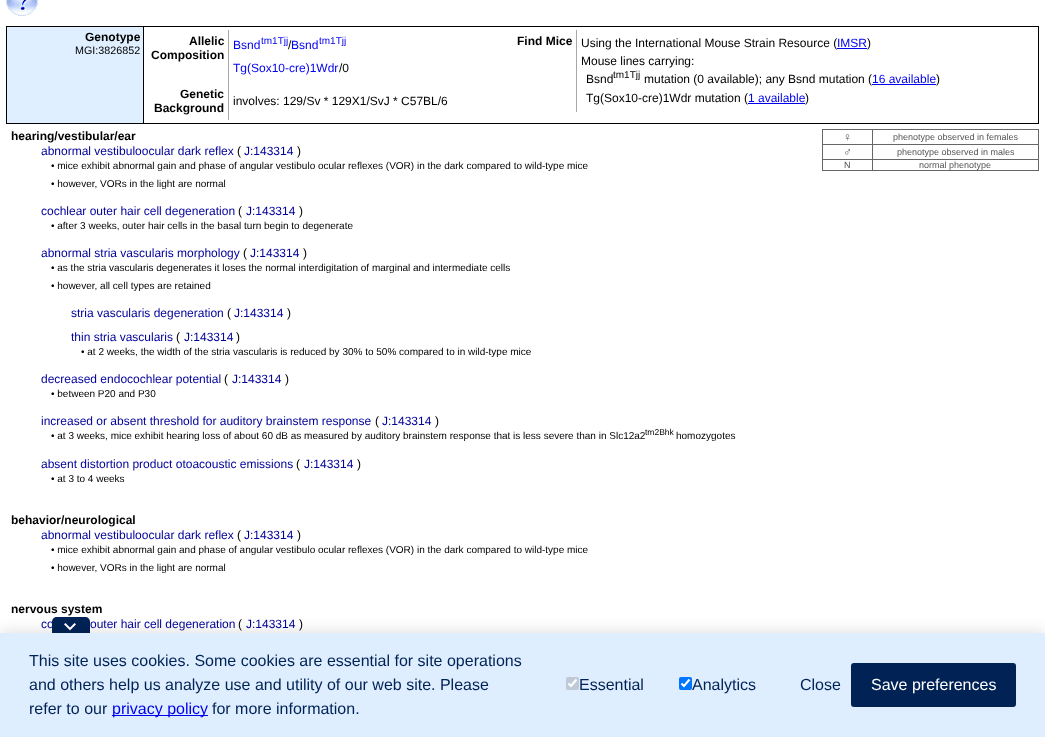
<svg xmlns="http://www.w3.org/2000/svg" width="1045" height="737" viewBox="0 0 1045 737">
  <defs>
    <clipPath id="clip1"><rect x="6" y="26" width="1033" height="97"/></clipPath>
    <filter id="blur1" x="-50%" y="-200%" width="200%" height="500%"><feGaussianBlur stdDeviation="8"/></filter>
  </defs>
  <rect width="100%" height="100%" fill="#ffffff"/>
  <image x="6" y="0" width="32" height="16" href="img1.png"/>
  <rect x="6" y="123" width="1033" height="1" fill="#000000"/>
  <rect x="7" y="27" width="136" height="96" fill="#dfefff"/>
  <text x="41" y="155" font-family="Liberation Sans" font-size="12" fill="#000099">abnormal vestibuloocular dark reflex</text>
  <text x="41" y="215" font-family="Liberation Sans" font-size="12" fill="#000099">cochlear outer hair cell degeneration</text>
  <text x="41" y="257" font-family="Liberation Sans" font-size="12" fill="#000099">abnormal stria vascularis morphology</text>
  <text x="71" y="317" font-family="Liberation Sans" font-size="12" fill="#000099">stria vascularis degeneration</text>
  <text x="71" y="341" font-family="Liberation Sans" font-size="12" fill="#000099">thin stria vascularis</text>
  <text x="41" y="383" font-family="Liberation Sans" font-size="12" fill="#000099">decreased endocochlear potential</text>
  <text x="41" y="425" font-family="Liberation Sans" font-size="12" fill="#000099">increased or absent threshold for auditory brainstem response</text>
  <text x="41" y="468" font-family="Liberation Sans" font-size="12" fill="#000099">absent distortion product otoacoustic emissions</text>
  <text x="41" y="539" font-family="Liberation Sans" font-size="12" fill="#000099">abnormal vestibuloocular dark reflex</text>
  <text x="90" y="628" font-family="Liberation Sans" font-size="12" fill="#000099">outer hair cell degeneration</text>
  <g clip-path="url(#clip1)">
    <rect x="6.5" y="26.5" width="137" height="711" fill="none" stroke="#000000"/>
  </g>
  <text x="85" y="41" font-family="Liberation Sans" font-size="12" font-weight="bold" fill="#000000">Genotype</text>
  <text x="75" y="54" font-family="Liberation Sans" font-size="10.75" fill="#000000">MGI:3826852</text>
  <rect x="144" y="26" width="895" height="1" fill="#000000"/>
  <rect x="1038" y="26" width="1" height="97" fill="#000000"/>
  <text x="189" y="45" font-family="Liberation Sans" font-size="12" font-weight="bold" fill="#000000">Allelic</text>
  <text x="151" y="59" font-family="Liberation Sans" font-size="12" font-weight="bold" fill="#000000">Composition</text>
  <text x="233" y="49" font-family="Liberation Sans" font-size="12" fill="#0000ee">Bsnd</text>
  <text x="288" y="49" font-family="Liberation Sans" font-size="12" fill="#000000">/</text>
  <text x="261" y="44" font-family="Liberation Sans" font-size="10" fill="#0000ee">tm1Tjj</text>
  <text x="291" y="49" font-family="Liberation Sans" font-size="12" fill="#0000ee">Bsnd</text>
  <text x="319" y="44" font-family="Liberation Sans" font-size="10" fill="#0000ee">tm1Tjj</text>
  <text x="233" y="72" font-family="Liberation Sans" font-size="12" fill="#0000ee">Tg(Sox10-cre)1Wdr</text>
  <text x="339" y="72" font-family="Liberation Sans" font-size="12" fill="#000000">/0</text>
  <rect x="228" y="30" width="1" height="90" fill="#a8a8a8"/>
  <text x="180" y="98" font-family="Liberation Sans" font-size="12" font-weight="bold" fill="#000000">Genetic</text>
  <text x="154" y="112" font-family="Liberation Sans" font-size="12" font-weight="bold" fill="#000000">Background</text>
  <text x="233" y="105" font-family="Liberation Sans" font-size="12" fill="#000000">involves: 129/Sv * 129X1/SvJ * C57BL/6</text>
  <rect x="576" y="30" width="1" height="82" fill="#a8a8a8"/>
  <text x="517" y="45" font-family="Liberation Sans" font-size="12" font-weight="bold" fill="#000000">Find Mice</text>
  <text x="581" y="47" font-family="Liberation Sans" font-size="12" fill="#000000">Using the International Mouse Strain Resource (</text>
  <text x="837" y="47" font-family="Liberation Sans" font-size="12" fill="#0000ee">IMSR</text>
  <rect x="837" y="48" width="30" height="1" fill="#0000ee"/>
  <text x="867" y="47" font-family="Liberation Sans" font-size="12" fill="#000000">)</text>
  <text x="581" y="65" font-family="Liberation Sans" font-size="12" fill="#000000">Mouse lines carrying:</text>
  <text x="586" y="83" font-family="Liberation Sans" font-size="12" fill="#000000">Bsnd</text>
  <text x="613" y="78" font-family="Liberation Sans" font-size="10" fill="#000000">tm1Tjj</text>
  <text x="644" y="83" font-family="Liberation Sans" font-size="12" fill="#000000">mutation (0 available); any Bsnd mutation (</text>
  <text x="872" y="83" font-family="Liberation Sans" font-size="12" fill="#0000ee">16 available</text>
  <rect x="872" y="84" width="64" height="1" fill="#0000ee"/>
  <text x="936" y="83" font-family="Liberation Sans" font-size="12" fill="#000000">)</text>
  <text x="586" y="102" font-family="Liberation Sans" font-size="12" fill="#000000">Tg(Sox10-cre)1Wdr mutation (</text>
  <text x="748" y="102" font-family="Liberation Sans" font-size="12" fill="#0000ee">1 available</text>
  <rect x="748" y="103" width="57" height="1" fill="#0000ee"/>
  <text x="805" y="102" font-family="Liberation Sans" font-size="12" fill="#000000">)</text>
  <text x="11" y="140" font-family="Liberation Sans" font-size="12" font-weight="bold" fill="#000000">hearing/vestibular/ear</text>
  <text x="237" y="155" font-family="Liberation Sans" font-size="12" fill="#000000">(</text>
  <text x="244" y="155" font-family="Liberation Sans" font-size="12" fill="#000099">J:143314</text>
  <text x="297" y="155" font-family="Liberation Sans" font-size="12" fill="#000000">)</text>
  <text x="51" y="169" font-family="Liberation Sans" font-size="10" fill="#000000">• mice exhibit abnormal gain and phase of angular vestibulo ocular reflexes (VOR) in the dark compared to wild-type mice</text>
  <text x="51" y="187" font-family="Liberation Sans" font-size="10" fill="#000000">• however, VORs in the light are normal</text>
  <text x="238" y="215" font-family="Liberation Sans" font-size="12" fill="#000000">(</text>
  <text x="246" y="215" font-family="Liberation Sans" font-size="12" fill="#000099">J:143314</text>
  <text x="299" y="215" font-family="Liberation Sans" font-size="12" fill="#000000">)</text>
  <text x="51" y="229" font-family="Liberation Sans" font-size="10" fill="#000000">• after 3 weeks, outer hair cells in the basal turn begin to degenerate</text>
  <text x="243" y="257" font-family="Liberation Sans" font-size="12" fill="#000000">(</text>
  <text x="250" y="257" font-family="Liberation Sans" font-size="12" fill="#000099">J:143314</text>
  <text x="303" y="257" font-family="Liberation Sans" font-size="12" fill="#000000">)</text>
  <text x="51" y="271" font-family="Liberation Sans" font-size="10" fill="#000000">• as the stria vascularis degenerates it loses the normal interdigitation of marginal and intermediate cells</text>
  <text x="51" y="289" font-family="Liberation Sans" font-size="10" fill="#000000">• however, all cell types are retained</text>
  <text x="227" y="317" font-family="Liberation Sans" font-size="12" fill="#000000">(</text>
  <text x="234" y="317" font-family="Liberation Sans" font-size="12" fill="#000099">J:143314</text>
  <text x="287" y="317" font-family="Liberation Sans" font-size="12" fill="#000000">)</text>
  <text x="176" y="341" font-family="Liberation Sans" font-size="12" fill="#000000">(</text>
  <text x="184" y="341" font-family="Liberation Sans" font-size="12" fill="#000099">J:143314</text>
  <text x="236" y="341" font-family="Liberation Sans" font-size="12" fill="#000000">)</text>
  <text x="81" y="355" font-family="Liberation Sans" font-size="10" fill="#000000">• at 2 weeks, the width of the stria vascularis is reduced by 30% to 50% compared to in wild-type mice</text>
  <text x="224" y="383" font-family="Liberation Sans" font-size="12" fill="#000000">(</text>
  <text x="232" y="383" font-family="Liberation Sans" font-size="12" fill="#000099">J:143314</text>
  <text x="285" y="383" font-family="Liberation Sans" font-size="12" fill="#000000">)</text>
  <text x="51" y="397" font-family="Liberation Sans" font-size="10" fill="#000000">• between P20 and P30</text>
  <text x="375" y="425" font-family="Liberation Sans" font-size="12" fill="#000000">(</text>
  <text x="382" y="425" font-family="Liberation Sans" font-size="12" fill="#000099">J:143314</text>
  <text x="435" y="425" font-family="Liberation Sans" font-size="12" fill="#000000">)</text>
  <text x="51" y="439" font-family="Liberation Sans" font-size="10" fill="#000000">• at 3 weeks, mice exhibit hearing loss of about 60 dB as measured by auditory brainstem response that is less severe than in Slc12a2</text>
  <text x="645" y="435" font-family="Liberation Sans" font-size="8.5" fill="#000000">tm2Bhk</text>
  <text x="676" y="439" font-family="Liberation Sans" font-size="10" fill="#000000">homozygotes</text>
  <text x="296" y="468" font-family="Liberation Sans" font-size="12" fill="#000000">(</text>
  <text x="304" y="468" font-family="Liberation Sans" font-size="12" fill="#000099">J:143314</text>
  <text x="357" y="468" font-family="Liberation Sans" font-size="12" fill="#000000">)</text>
  <text x="51" y="482" font-family="Liberation Sans" font-size="10" fill="#000000">• at 3 to 4 weeks</text>
  <text x="11" y="524" font-family="Liberation Sans" font-size="12" font-weight="bold" fill="#000000">behavior/neurological</text>
  <text x="237" y="539" font-family="Liberation Sans" font-size="12" fill="#000000">(</text>
  <text x="244" y="539" font-family="Liberation Sans" font-size="12" fill="#000099">J:143314</text>
  <text x="297" y="539" font-family="Liberation Sans" font-size="12" fill="#000000">)</text>
  <text x="51" y="553" font-family="Liberation Sans" font-size="10" fill="#000000">• mice exhibit abnormal gain and phase of angular vestibulo ocular reflexes (VOR) in the dark compared to wild-type mice</text>
  <text x="51" y="571" font-family="Liberation Sans" font-size="10" fill="#000000">• however, VORs in the light are normal</text>
  <text x="11" y="613" font-family="Liberation Sans" font-size="12" font-weight="bold" fill="#000000">nervous system</text>
  <text x="41" y="628" font-family="Liberation Sans" font-size="12" fill="#000099">co</text>
  <text x="238" y="628" font-family="Liberation Sans" font-size="12" fill="#000000">(</text>
  <text x="246" y="628" font-family="Liberation Sans" font-size="12" fill="#000099">J:143314</text>
  <text x="299" y="628" font-family="Liberation Sans" font-size="12" fill="#000000">)</text>
  <rect x="822" y="129" width="217" height="1" fill="#666666"/>
  <rect x="1038" y="129" width="1" height="42" fill="#666666"/>
  <rect x="822" y="170" width="217" height="1" fill="#666666"/>
  <rect x="822" y="129" width="1" height="42" fill="#666666"/>
  <text x="843" y="141" font-family="Liberation Sans" font-size="12" fill="#555555">♀</text>
  <rect x="872" y="144" width="167" height="1" fill="#666666"/>
  <rect x="872" y="159" width="167" height="1" fill="#666666"/>
  <rect x="872" y="159" width="1" height="12" fill="#666666"/>
  <rect x="822" y="159" width="51" height="1" fill="#666666"/>
  <rect x="872" y="144" width="1" height="16" fill="#666666"/>
  <rect x="822" y="144" width="51" height="1" fill="#666666"/>
  <rect x="872" y="129" width="1" height="16" fill="#666666"/>
  <text x="893" y="140" font-family="Liberation Sans" font-size="9" fill="#555555">phenotype observed in females</text>
  <text x="843" y="156" font-family="Liberation Sans" font-size="12" fill="#555555">♂</text>
  <text x="897" y="155" font-family="Liberation Sans" font-size="9" fill="#555555">phenotype observed in males</text>
  <text x="844" y="168" font-family="Liberation Sans" font-size="9" fill="#555555">N</text>
  <text x="919" y="168" font-family="Liberation Sans" font-size="9" fill="#555555">normal phenotype</text>
  <path d="M57 617H85C88 617 90 619 90 622V633H52V622C52 619 54 617 57 617Z" fill="#002255"/>
  <rect x="0" y="633" width="1045" height="104" fill="#000000" fill-opacity="0.15" filter="url(#blur1)"/>
  <image x="64" y="623" width="12" height="8" href="img2.png"/>
  <rect x="0" y="633" width="1045" height="104" fill="#deeeff"/>
  <text x="29" y="666" font-family="Liberation Sans" font-size="16" fill="#002255">This site uses cookies. Some cookies are essential for site operations</text>
  <text x="29" y="690" font-family="Liberation Sans" font-size="16" fill="#002255">and others help us analyze use and utility of our web site. Please</text>
  <text x="29" y="714" font-family="Liberation Sans" font-size="16" fill="#002255">refer to our</text>
  <rect x="112" y="715" width="96" height="1" fill="#0000ee"/>
  <text x="112" y="714" font-family="Liberation Sans" font-size="16" fill="#0000ee">privacy policy</text>
  <text x="212" y="714" font-family="Liberation Sans" font-size="16" fill="#002255">for more information.</text>
  <rect x="566" y="677" width="13" height="13" rx="2" fill="#bfcad6"/>
  <path d="M568.5 683.5L571 686L576.5 679.5" fill="none" stroke="#ffffff" stroke-width="2.1"/>
  <text x="579" y="690" font-family="Liberation Sans" font-size="16" fill="#002255">Essential</text>
  <rect x="679" y="677" width="13" height="13" rx="2" fill="#0075ff"/>
  <path d="M681.5 683.5L684 686L689.5 679.5" fill="none" stroke="#ffffff" stroke-width="2.1"/>
  <text x="692" y="690" font-family="Liberation Sans" font-size="16" fill="#002255">Analytics</text>
  <text x="800" y="690" font-family="Liberation Sans" font-size="16" fill="#002255">Close</text>
  <rect x="851" y="663" width="165" height="44" rx="3" fill="#002255"/>
  <text x="871" y="690" font-family="Liberation Sans" font-size="16" fill="#ffffff">Save preferences</text>
</svg>
